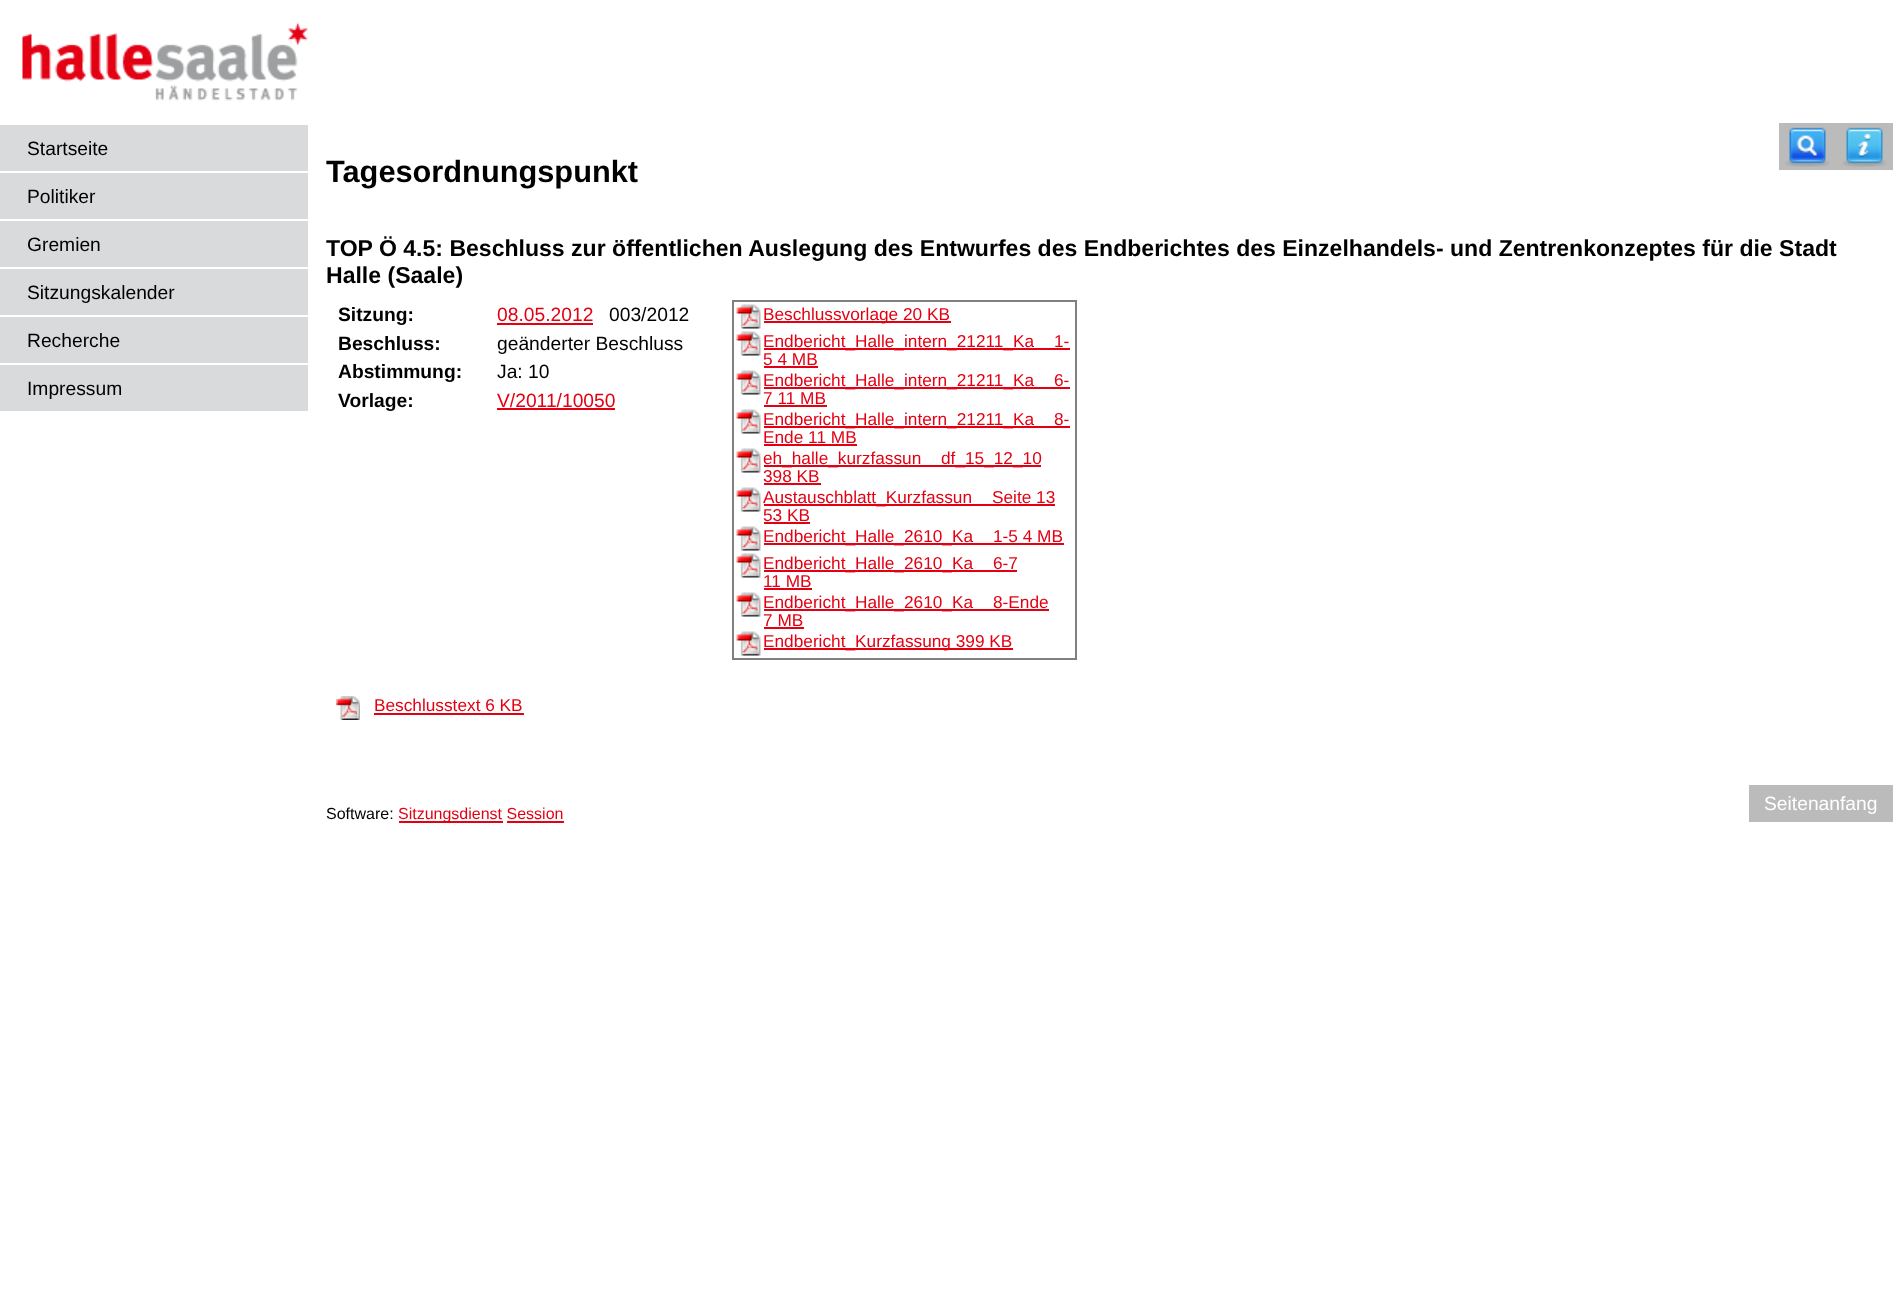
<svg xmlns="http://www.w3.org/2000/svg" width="1902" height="1316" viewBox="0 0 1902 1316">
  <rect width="100%" height="100%" fill="#ffffff"/>
  <image x="22" y="22" width="286" height="79" href="img1.png"/>
  <rect x="0" y="125" width="308" height="46" fill="#d8dadb"/>
  <text x="27" y="155" font-family="Liberation Sans" font-size="19.25" fill="#000000">Startseite</text>
  <rect x="0" y="173" width="308" height="46" fill="#d8dadb"/>
  <text x="27" y="203" font-family="Liberation Sans" font-size="19.25" fill="#000000">Politiker</text>
  <rect x="0" y="221" width="308" height="46" fill="#d8dadb"/>
  <text x="27" y="251" font-family="Liberation Sans" font-size="19.25" fill="#000000">Gremien</text>
  <rect x="0" y="269" width="308" height="46" fill="#d8dadb"/>
  <text x="27" y="299" font-family="Liberation Sans" font-size="19.25" fill="#000000">Sitzungskalender</text>
  <rect x="0" y="317" width="308" height="46" fill="#d8dadb"/>
  <text x="27" y="347" font-family="Liberation Sans" font-size="19.25" fill="#000000">Recherche</text>
  <rect x="0" y="365" width="308" height="46" fill="#d8dadb"/>
  <text x="27" y="395" font-family="Liberation Sans" font-size="19.25" fill="#000000">Impressum</text>
  <rect x="1779" y="123" width="114" height="47" fill="#bbbbbb"/>
  <image x="1785" y="127" width="45" height="40" href="img2.png"/>
  <image x="1842" y="127" width="45" height="40" href="img3.png"/>
  <text x="326" y="182" font-family="Liberation Sans" font-size="30.75" font-weight="bold" fill="#000000">Tagesordnungspunkt</text>
  <text x="326" y="256" font-family="Liberation Sans" font-size="23.05" font-weight="bold" fill="#000000">TOP Ö 4.5: Beschluss zur öffentlichen Auslegung des Entwurfes des Endberichtes des Einzelhandels- und Zentrenkonzeptes für die Stadt</text>
  <text x="326" y="283" font-family="Liberation Sans" font-size="23.05" font-weight="bold" fill="#000000">Halle (Saale)</text>
  <text x="338" y="321" font-family="Liberation Sans" font-size="19.25" font-weight="bold" fill="#000000">Sitzung:</text>
  <text x="497" y="321" font-family="Liberation Sans" font-size="19.25" fill="#e30013">08.05.2012</text>
  <rect x="497" y="323" width="96" height="2" fill="#e30013"/>
  <text x="609" y="321" font-family="Liberation Sans" font-size="19.25" fill="#000000">003/2012</text>
  <text x="338" y="350" font-family="Liberation Sans" font-size="19.25" font-weight="bold" fill="#000000">Beschluss:</text>
  <text x="497" y="350" font-family="Liberation Sans" font-size="19.25" fill="#000000">geänderter Beschluss</text>
  <text x="338" y="378" font-family="Liberation Sans" font-size="19.25" font-weight="bold" fill="#000000">Abstimmung:</text>
  <text x="497" y="378" font-family="Liberation Sans" font-size="19.25" fill="#000000">Ja: 10</text>
  <text x="338" y="407" font-family="Liberation Sans" font-size="19.25" font-weight="bold" fill="#000000">Vorlage:</text>
  <text x="497" y="407" font-family="Liberation Sans" font-size="19.25" fill="#e30013">V/2011/10050</text>
  <rect x="497" y="408" width="118" height="2" fill="#e30013"/>
  <rect x="733" y="301" width="343" height="358" fill="none" stroke="#808080" stroke-width="2"/>
  <image x="736" y="304" width="25" height="25" href="img4.png"/>
  <rect x="764" y="321" width="187" height="2" fill="#e30013"/>
  <text x="763" y="320" font-family="Liberation Sans" font-size="17.25" fill="#e30013">Beschlussvorlage 20 KB</text>
  <image x="736" y="331" width="25" height="25" href="img4.png"/>
  <rect x="764" y="348" width="306" height="2" fill="#e30013"/>
  <text x="763" y="347" font-family="Liberation Sans" font-size="17.25" fill="#e30013">Endbericht_Halle_intern_21211_Ka</text>
  <text x="1054" y="347" font-family="Liberation Sans" font-size="17.25" fill="#e30013">1-</text>
  <text x="763" y="365" font-family="Liberation Sans" font-size="17.25" fill="#e30013">5 4 MB</text>
  <rect x="764" y="366" width="54" height="2" fill="#e30013"/>
  <image x="736" y="370" width="25" height="25" href="img4.png"/>
  <rect x="764" y="387" width="306" height="2" fill="#e30013"/>
  <text x="763" y="386" font-family="Liberation Sans" font-size="17.25" fill="#e30013">Endbericht_Halle_intern_21211_Ka</text>
  <text x="1054" y="386" font-family="Liberation Sans" font-size="17.25" fill="#e30013">6-</text>
  <text x="763" y="404" font-family="Liberation Sans" font-size="17.25" fill="#e30013">7 11 MB</text>
  <rect x="764" y="405" width="63" height="2" fill="#e30013"/>
  <image x="736" y="409" width="25" height="25" href="img4.png"/>
  <rect x="764" y="426" width="306" height="2" fill="#e30013"/>
  <text x="763" y="425" font-family="Liberation Sans" font-size="17.25" fill="#e30013">Endbericht_Halle_intern_21211_Ka</text>
  <text x="1054" y="425" font-family="Liberation Sans" font-size="17.25" fill="#e30013">8-</text>
  <text x="763" y="443" font-family="Liberation Sans" font-size="17.25" fill="#e30013">Ende 11 MB</text>
  <rect x="764" y="444" width="93" height="2" fill="#e30013"/>
  <image x="736" y="448" width="25" height="25" href="img4.png"/>
  <rect x="764" y="465" width="277" height="2" fill="#e30013"/>
  <text x="763" y="464" font-family="Liberation Sans" font-size="17.25" fill="#e30013">eh_halle_kurzfassun</text>
  <text x="941" y="464" font-family="Liberation Sans" font-size="17.25" fill="#e30013">df_15_12_10</text>
  <text x="763" y="482" font-family="Liberation Sans" font-size="17.25" fill="#e30013">398 KB</text>
  <rect x="764" y="483" width="57" height="2" fill="#e30013"/>
  <image x="736" y="487" width="25" height="25" href="img4.png"/>
  <rect x="764" y="504" width="291" height="2" fill="#e30013"/>
  <text x="763" y="503" font-family="Liberation Sans" font-size="17.25" fill="#e30013">Austauschblatt_Kurzfassun</text>
  <text x="992" y="503" font-family="Liberation Sans" font-size="17.25" fill="#e30013">Seite 13</text>
  <text x="763" y="521" font-family="Liberation Sans" font-size="17.25" fill="#e30013">53 KB</text>
  <rect x="764" y="522" width="46" height="2" fill="#e30013"/>
  <image x="736" y="526" width="25" height="25" href="img4.png"/>
  <rect x="764" y="543" width="300" height="2" fill="#e30013"/>
  <text x="763" y="542" font-family="Liberation Sans" font-size="17.25" fill="#e30013">Endbericht_Halle_2610_Ka</text>
  <text x="993" y="542" font-family="Liberation Sans" font-size="17.25" fill="#e30013">1-5 4 MB</text>
  <image x="736" y="553" width="25" height="25" href="img4.png"/>
  <rect x="764" y="570" width="253" height="2" fill="#e30013"/>
  <text x="763" y="569" font-family="Liberation Sans" font-size="17.25" fill="#e30013">Endbericht_Halle_2610_Ka</text>
  <text x="993" y="569" font-family="Liberation Sans" font-size="17.25" fill="#e30013">6-7</text>
  <text x="763" y="587" font-family="Liberation Sans" font-size="17.25" fill="#e30013">11 MB</text>
  <rect x="764" y="588" width="48" height="2" fill="#e30013"/>
  <image x="736" y="592" width="25" height="25" href="img4.png"/>
  <rect x="764" y="609" width="285" height="2" fill="#e30013"/>
  <text x="763" y="608" font-family="Liberation Sans" font-size="17.25" fill="#e30013">Endbericht_Halle_2610_Ka</text>
  <text x="993" y="608" font-family="Liberation Sans" font-size="17.25" fill="#e30013">8-Ende</text>
  <text x="763" y="626" font-family="Liberation Sans" font-size="17.25" fill="#e30013">7 MB</text>
  <rect x="764" y="627" width="40" height="2" fill="#e30013"/>
  <image x="736" y="631" width="25" height="25" href="img4.png"/>
  <rect x="764" y="648" width="249" height="2" fill="#e30013"/>
  <text x="763" y="647" font-family="Liberation Sans" font-size="17.25" fill="#e30013">Endbericht_Kurzfassung 399 KB</text>
  <image x="336" y="696" width="24" height="24" href="img5.png"/>
  <text x="374" y="711" font-family="Liberation Sans" font-size="17.25" fill="#e30013">Beschlusstext 6 KB</text>
  <rect x="374" y="713" width="150" height="2" fill="#e30013"/>
  <text x="326" y="819" font-family="Liberation Sans" font-size="16" fill="#000000">Software:</text>
  <rect x="399" y="821" width="104" height="2" fill="#e30013"/>
  <text x="398" y="819" font-family="Liberation Sans" font-size="16" fill="#e30013">Sitzungsdienst Session</text>
  <rect x="507" y="821" width="57" height="2" fill="#e30013"/>
  <rect x="1749" y="785" width="144" height="37" fill="#bbbbbb"/>
  <text x="1764" y="810" font-family="Liberation Sans" font-size="19.25" fill="#ffffff">Seitenanfang</text>
</svg>
